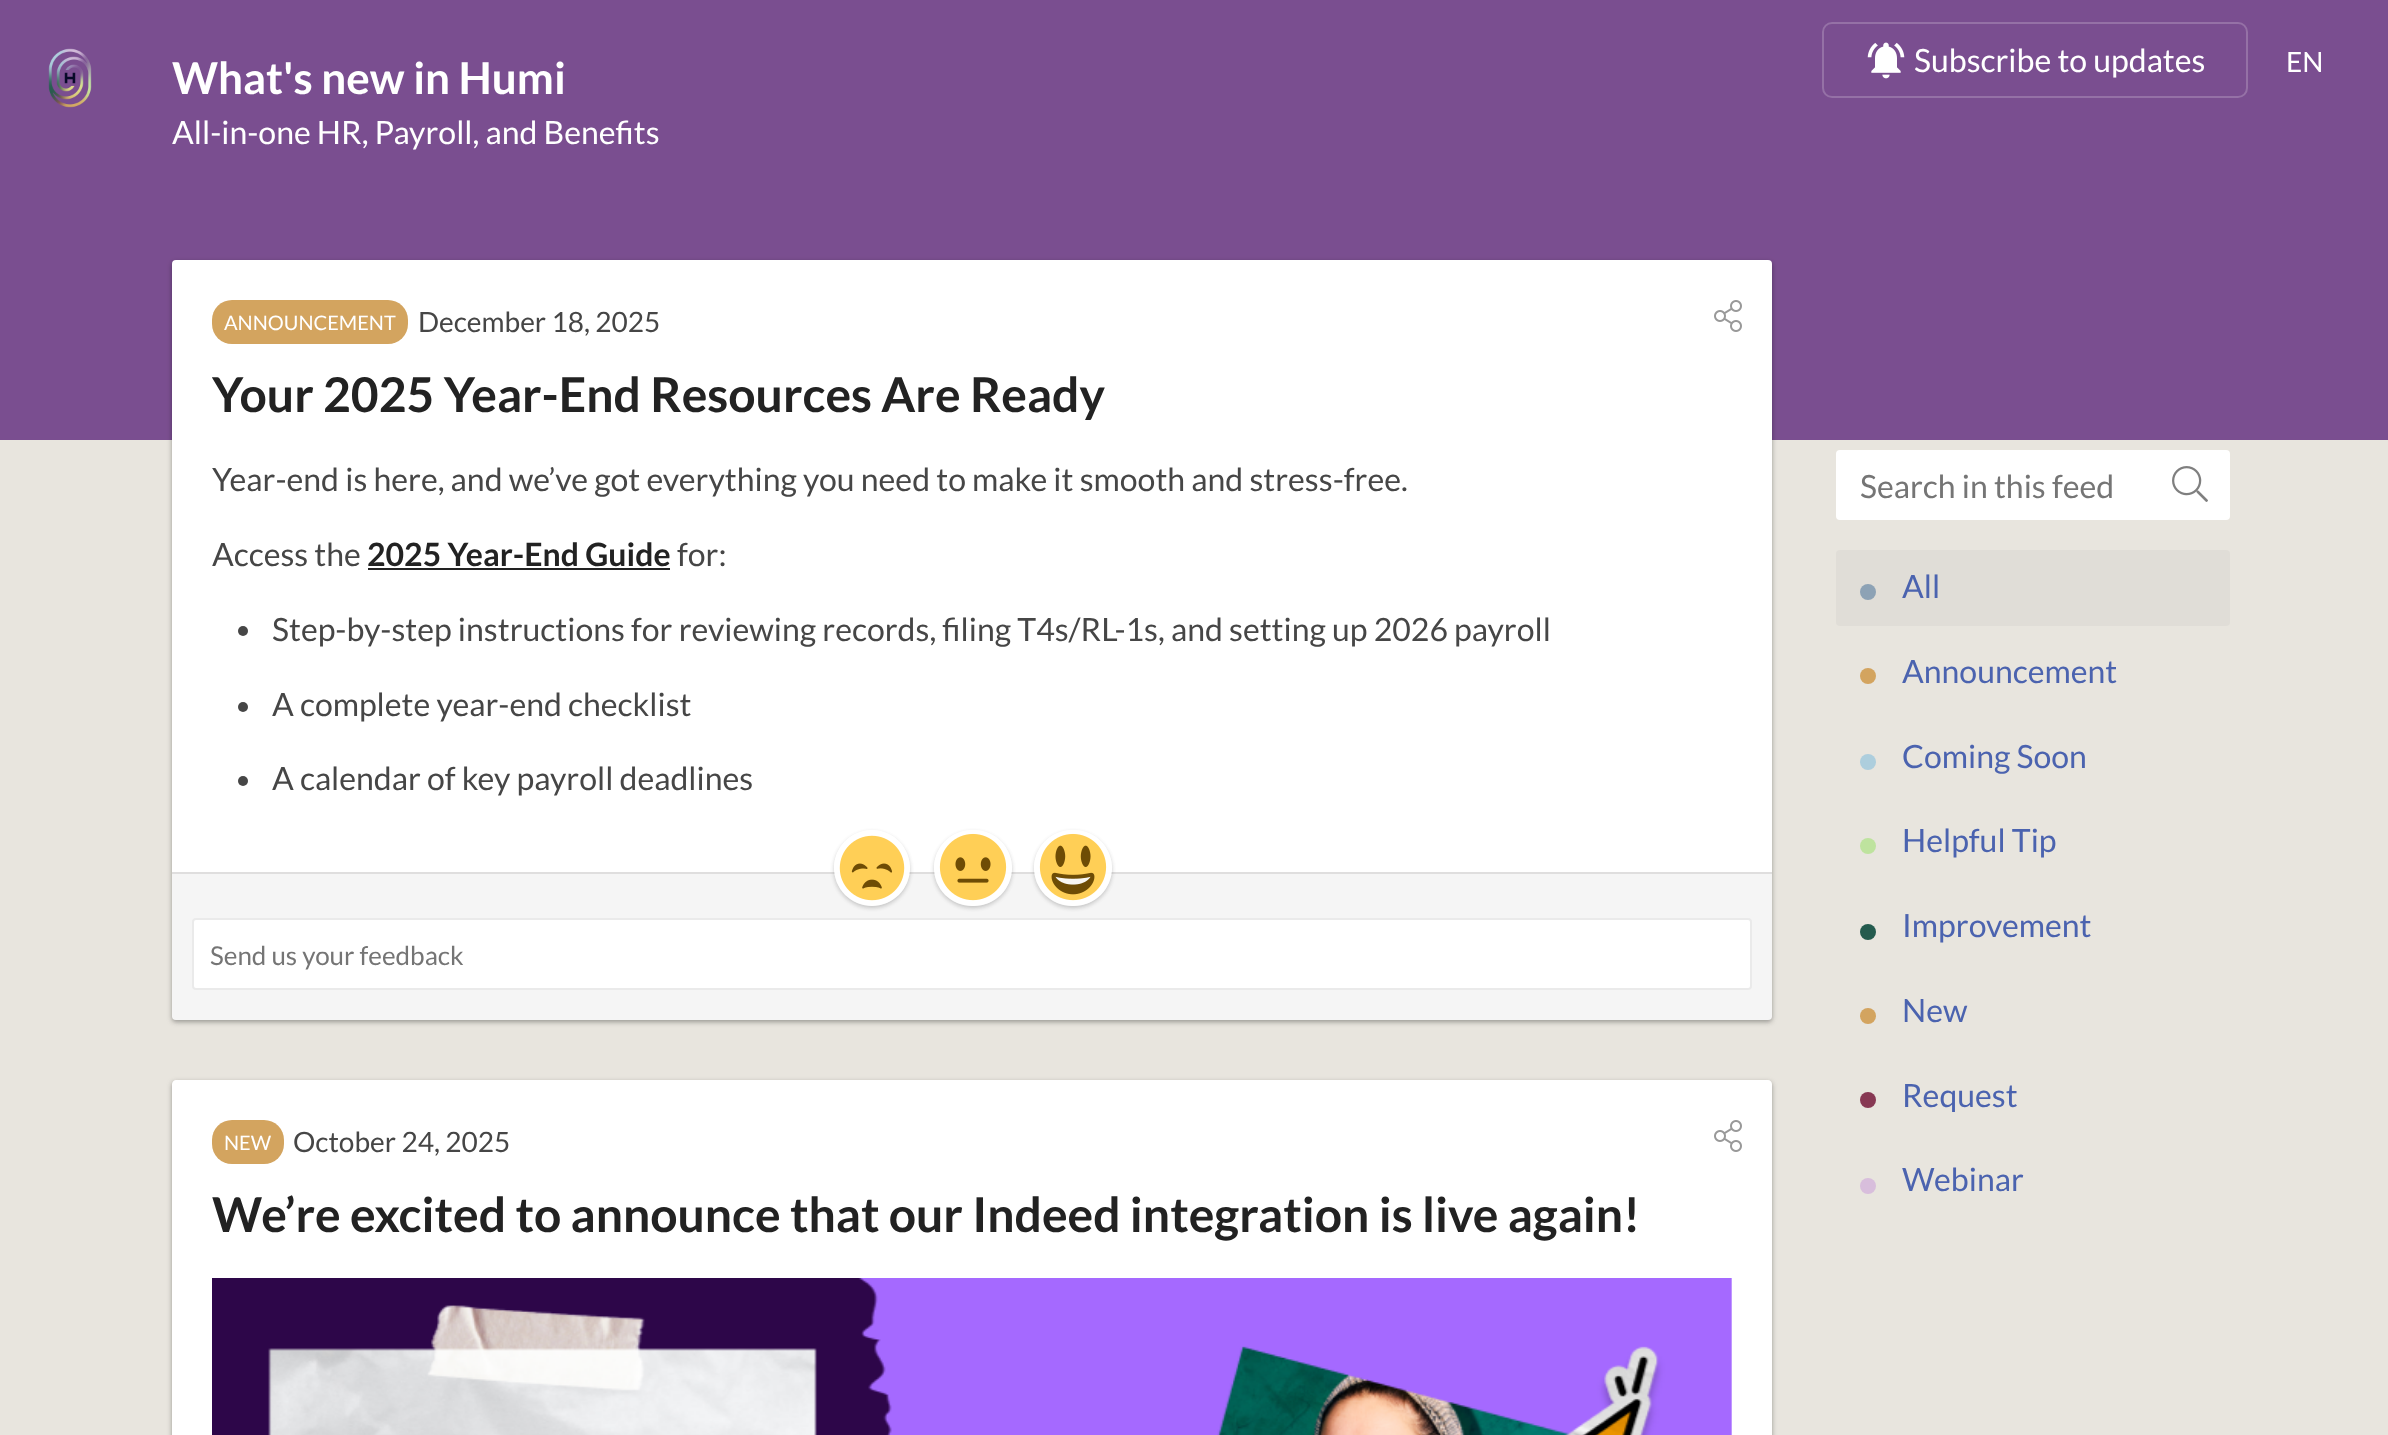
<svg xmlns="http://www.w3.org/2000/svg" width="2388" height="1435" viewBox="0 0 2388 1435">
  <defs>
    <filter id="blur1" x="-50%" y="-200%" width="200%" height="500%"><feGaussianBlur stdDeviation="2"/></filter>
    <filter id="blur2" x="-50%" y="-200%" width="200%" height="500%"><feGaussianBlur stdDeviation="3"/></filter>
    <clipPath id="clip1"><path d="M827 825H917V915H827ZM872 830C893 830 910 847 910 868C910 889 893 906 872 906C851 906 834 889 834 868C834 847 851 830 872 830Z" clip-rule="evenodd"/></clipPath>
    <clipPath id="clip2"><path d="M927 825H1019V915H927ZM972 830H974C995 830 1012 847 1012 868C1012 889 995 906 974 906H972C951 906 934 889 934 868C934 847 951 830 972 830Z" clip-rule="evenodd"/></clipPath>
    <clipPath id="clip3"><path d="M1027 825H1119V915H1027ZM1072 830H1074C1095 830 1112 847 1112 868C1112 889 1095 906 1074 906H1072C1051 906 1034 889 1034 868C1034 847 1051 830 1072 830Z" clip-rule="evenodd"/></clipPath>
    <clipPath id="clip4"><rect x="1902" y="1076" width="298" height="36"/></clipPath>
  </defs>
  <rect width="100%" height="100%" fill="#e8e5de"/>
  <rect x="0" y="0" width="2388" height="440" fill="#7a4e90"/>
  <text x="172" y="94" font-family="Lato" font-size="44" font-weight="bold" fill="#ffffff">What's new in Humi</text>
  <image x="48" y="48" width="44" height="60" href="img1.png"/>
  <rect x="1823" y="23" width="424" height="74" rx="9" fill="none" stroke="#9571a6" stroke-width="2"/>
  <image x="1867" y="42" width="38" height="37" href="img2.png"/>
  <text x="1914" y="72" font-family="Lato" font-size="32" fill="#ffffff">Subscribe to updates</text>
  <text x="2286" y="72" font-family="Lato" font-size="28" fill="#ffffff">EN</text>
  <text x="172" y="144" font-family="Lato" font-size="32" fill="#ffffff">All-in-one HR, Payroll, and Benefits</text>
  <rect x="172" y="262" width="1600" height="760" rx="4" fill="#000000" fill-opacity="0.24" filter="url(#blur1)"/>
  <rect x="172" y="262" width="1600" height="760" rx="4" fill="#000000" fill-opacity="0.12" filter="url(#blur2)"/>
  <rect x="172" y="260" width="1600" height="760" rx="4" fill="#ffffff"/>
  <rect x="212" y="300" width="196" height="44" rx="20" fill="#d3a45f"/>
  <text x="224" y="330" font-family="Lato" font-size="20" fill="#ffffff">ANNOUNCEMENT</text>
  <text x="418" y="332" font-family="Lato" font-size="28" fill="#464646">December 18, 2025</text>
  <image x="1714" y="300" width="28" height="32" href="img3.png"/>
  <text x="212" y="412" font-family="Lato" font-size="48" font-weight="bold" fill="#222222">Your 2025 Year-End Resources Are Ready</text>
  <text x="212" y="491" font-family="Lato" font-size="32" fill="#464646">Year-end is here, and we’ve got everything you need to make it smooth and stress-free.</text>
  <text x="212" y="566" font-family="Lato" font-size="32" fill="#464646">Access the</text>
  <text x="367" y="566" font-family="Lato" font-size="32" font-weight="bold" fill="#222222">2025 Year-End Guide</text>
  <rect x="368" y="568" width="302" height="2" fill="#222222"/>
  <text x="677" y="566" font-family="Lato" font-size="32" fill="#464646">for:</text>
  <circle cx="243" cy="631" r="5" fill="#464646"/>
  <text x="272" y="641" font-family="Lato" font-size="32" fill="#464646">Step-by-step instructions for reviewing records, filing T4s/RL-1s, and setting up 2026 payroll</text>
  <circle cx="243" cy="707" r="5" fill="#464646"/>
  <text x="272" y="716" font-family="Lato" font-size="32" fill="#464646">A complete year-end checklist</text>
  <circle cx="243" cy="781" r="5" fill="#464646"/>
  <text x="272" y="790" font-family="Lato" font-size="32" fill="#464646">A calendar of key payroll deadlines</text>
  <path d="M172 872H1772V1016C1772 1018 1770 1020 1768 1020H176C174 1020 172 1018 172 1016Z" fill="#9c9c9c" fill-opacity="0.1"/>
  <rect x="172" y="872" width="1600" height="2" fill="#dfdede"/>
  <g clip-path="url(#clip1)">
    <rect x="834" y="832" width="76" height="76" rx="38" fill="#000000" fill-opacity="0.14" filter="url(#blur1)"/>
    <rect x="834" y="832" width="76" height="76" rx="38" fill="#000000" fill-opacity="0.08" filter="url(#blur1)"/>
  </g>
  <circle cx="872" cy="868" r="38" fill="#ffffff" fill-opacity="0.95"/>
  <image x="839" y="835" width="66" height="66" href="img4.png"/>
  <g clip-path="url(#clip2)">
    <rect x="934" y="832" width="78" height="76" rx="38" fill="#000000" fill-opacity="0.14" filter="url(#blur1)"/>
    <rect x="934" y="832" width="78" height="76" rx="38" fill="#000000" fill-opacity="0.08" filter="url(#blur1)"/>
  </g>
  <rect x="934" y="830" width="78" height="76" rx="38" fill="#ffffff" fill-opacity="0.95"/>
  <image x="939" y="833" width="68" height="68" href="img5.png"/>
  <g clip-path="url(#clip3)">
    <rect x="1034" y="832" width="78" height="76" rx="38" fill="#000000" fill-opacity="0.14" filter="url(#blur1)"/>
    <rect x="1034" y="832" width="78" height="76" rx="38" fill="#000000" fill-opacity="0.08" filter="url(#blur1)"/>
  </g>
  <rect x="1034" y="830" width="78" height="76" rx="38" fill="#ffffff" fill-opacity="0.95"/>
  <image x="1039" y="833" width="68" height="68" href="img6.png"/>
  <rect x="193" y="919" width="1558" height="70" rx="3" fill="#ffffff" stroke="#eaeaea" stroke-width="2"/>
  <text x="210" y="965" font-family="Lato" font-size="26" fill="#757575">Send us your feedback</text>
  <rect x="172" y="1082" width="1600" height="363" rx="4" fill="#000000" fill-opacity="0.24" filter="url(#blur1)"/>
  <rect x="172" y="1082" width="1600" height="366" rx="4" fill="#000000" fill-opacity="0.12" filter="url(#blur2)"/>
  <path d="M176 1080H1768C1770 1080 1772 1082 1772 1084V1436H172V1084C172 1082 174 1080 176 1080Z" fill="#ffffff"/>
  <rect x="212" y="1120" width="72" height="44" rx="20" fill="#d3a45f"/>
  <text x="224" y="1150" font-family="Lato" font-size="20" fill="#ffffff">NEW</text>
  <text x="293" y="1152" font-family="Lato" font-size="28" fill="#464646">October 24, 2025</text>
  <image x="1714" y="1120" width="28" height="32" href="img3.png"/>
  <text x="212" y="1232" font-family="Lato" font-size="48" font-weight="bold" fill="#222222">We’re excited to announce that our Indeed integration is live again!</text>
  <image x="212" y="1278" width="1520" height="157" href="img7.png"/>
  <rect x="1836" y="450" width="394" height="70" rx="4" fill="#ffffff"/>
  <text x="1860" y="498" font-family="Lato" font-size="32" fill="#757575">Search in this feed</text>
  <image x="2172" y="466" width="36" height="36" href="img8.png"/>
  <rect x="1836" y="550" width="394" height="76" rx="4" fill="#e0ddd7"/>
  <circle cx="1868" cy="592" r="8" fill="#8da2b5"/>
  <text x="1902" y="598" font-family="Lato" font-size="32" fill="#4b63af">All</text>
  <circle cx="1868" cy="676" r="8" fill="#d3a45f"/>
  <text x="1902" y="683" font-family="Lato" font-size="32" fill="#4b63af">Announcement</text>
  <circle cx="1868" cy="762" r="8" fill="#adcedd"/>
  <text x="1902" y="768" font-family="Lato" font-size="32" fill="#4b63af">Coming Soon</text>
  <circle cx="1868" cy="846" r="8" fill="#bee39e"/>
  <text x="1902" y="852" font-family="Lato" font-size="32" fill="#4b63af">Helpful Tip</text>
  <circle cx="1868" cy="932" r="8" fill="#245b4e"/>
  <text x="1902" y="937" font-family="Lato" font-size="32" fill="#4b63af">Improvement</text>
  <circle cx="1868" cy="1016" r="8" fill="#d3a45f"/>
  <text x="1902" y="1022" font-family="Lato" font-size="32" fill="#4b63af">New</text>
  <circle cx="1868" cy="1100" r="8" fill="#873853"/>
  <g clip-path="url(#clip4)">
    <text x="1902" y="1107" font-family="Lato" font-size="32" fill="#4b63af">Request</text>
  </g>
  <circle cx="1868" cy="1186" r="8" fill="#d8bedc"/>
  <text x="1902" y="1191" font-family="Lato" font-size="32" fill="#4b63af">Webinar</text>
</svg>
